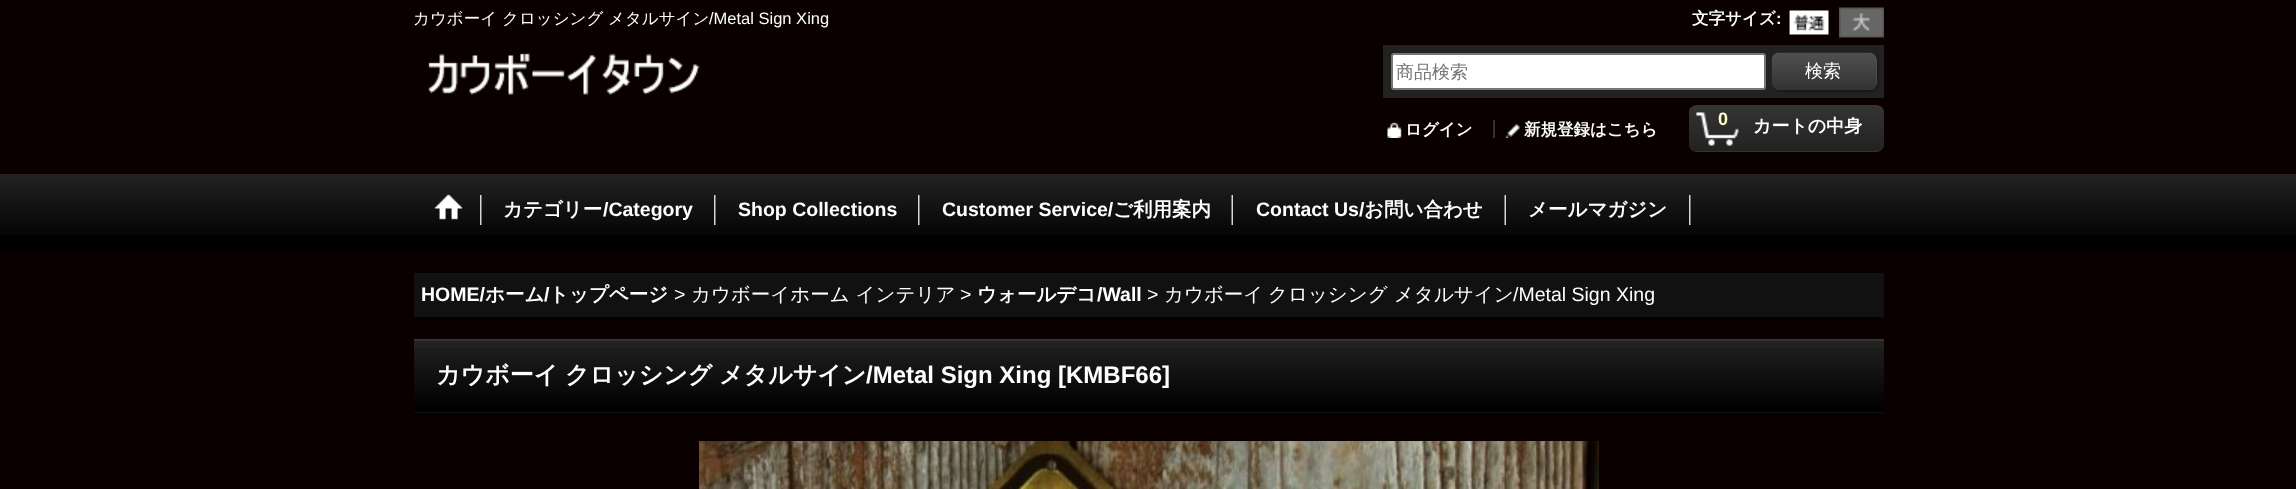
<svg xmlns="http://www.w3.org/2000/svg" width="2296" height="489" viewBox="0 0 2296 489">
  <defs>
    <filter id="blur1" x="-50%" y="-200%" width="200%" height="500%"><feGaussianBlur stdDeviation="1.5"/></filter>
  </defs>
  <rect width="100%" height="100%" fill="#0b0000"/>
  <text x="413" y="24" font-family="WenQuanYi Zen Hei" font-size="16.5" font-weight="500" fill="#ffffff">カウボーイ</text>
  <text x="502" y="24" font-family="WenQuanYi Zen Hei" font-size="16.5" font-weight="500" fill="#ffffff">クロッシング</text>
  <text x="608" y="24" font-family="WenQuanYi Zen Hei" font-size="16.5" font-weight="500" fill="#ffffff">メタルサイン</text>
  <text x="709" y="24" font-family="Liberation Sans" font-size="16.5" fill="#ffffff">/Metal Sign Xing</text>
  <text x="1692" y="24" font-family="WenQuanYi Zen Hei" font-size="16.5" font-weight="bold" fill="#ffffff">文字サイズ</text>
  <text x="1776" y="24" font-family="Liberation Sans" font-size="16.5" font-weight="bold" fill="#ffffff">:</text>
  <image x="1789" y="10" width="40" height="25" href="img1.png"/>
  <image x="1839" y="7" width="45" height="31" href="img2.png"/>
  <image x="428" y="53" width="272" height="42" href="img3.png"/>
  <rect x="1383" y="45" width="501" height="53" fill="#222222"/>
  <rect x="1392" y="54" width="373" height="35" rx="2" fill="#ffffff" stroke="#767676" stroke-width="2"/>
  <text x="1396" y="78" font-family="WenQuanYi Zen Hei" font-size="18" font-weight="500" fill="#757575">商品検索</text>
  <rect x="1773" y="54" width="105" height="38" rx="8" fill="#000000" fill-opacity="0.3" filter="url(#blur1)"/>
  <rect x="1772" y="53" width="105" height="37" rx="8" fill="#555555"/>
  <image x="1771" y="52" width="106" height="38" href="img4.png"/>
  <text x="1805" y="77" font-family="WenQuanYi Zen Hei" font-size="18" font-weight="500" fill="#ffffff">検索</text>
  <image x="1387" y="122" width="15" height="16" href="img5.png"/>
  <text x="1405" y="135" font-family="WenQuanYi Zen Hei" font-size="16.5" font-weight="bold" fill="#ffffff">ログイン</text>
  <rect x="1493" y="120" width="2" height="18" fill="#333333"/>
  <image x="1505" y="124" width="15" height="14" href="img6.png"/>
  <text x="1524" y="135" font-family="WenQuanYi Zen Hei" font-size="16.5" font-weight="bold" fill="#ffffff">新規登録はこちら</text>
  <rect x="1689" y="105" width="195" height="47" rx="8" fill="#333333"/>
  <image x="1689" y="106" width="195" height="45" href="img7.png"/>
  <image x="1696" y="112" width="43" height="34" href="img8.png"/>
  <text x="1718" y="125" font-family="Liberation Sans" font-size="18" font-weight="bold" fill="#ffffcc">0</text>
  <text x="1753" y="132" font-family="WenQuanYi Zen Hei" font-size="18" font-weight="bold" fill="#ffffff">カートの中身</text>
  <rect x="0" y="235" width="2296" height="16" fill="#000000"/>
  <image x="0" y="174" width="2296" height="61" href="img9.png"/>
  <image x="480" y="195" width="2" height="30" href="img10.png"/>
  <image x="434" y="194" width="29" height="26" href="img11.png"/>
  <image x="714" y="195" width="2" height="30" href="img10.png"/>
  <text x="503" y="216" font-family="WenQuanYi Zen Hei" font-size="19.5" font-weight="bold" fill="#ffffff">カテゴリー</text>
  <text x="603" y="216" font-family="Liberation Sans" font-size="19.5" font-weight="bold" fill="#ffffff">/Category</text>
  <image x="918" y="195" width="2" height="30" href="img10.png"/>
  <text x="738" y="216" font-family="Liberation Sans" font-size="19.5" font-weight="bold" fill="#ffffff">Shop Collections</text>
  <image x="1231" y="195" width="2" height="30" href="img12.png"/>
  <text x="942" y="216" font-family="Liberation Sans" font-size="19.5" font-weight="bold" fill="#ffffff">Customer Service/</text>
  <text x="1113" y="216" font-family="WenQuanYi Zen Hei" font-size="19.5" font-weight="bold" fill="#ffffff">ご利用案内</text>
  <image x="1504" y="195" width="2" height="30" href="img12.png"/>
  <text x="1256" y="216" font-family="Liberation Sans" font-size="19.5" font-weight="bold" fill="#ffffff">Contact Us/</text>
  <text x="1364" y="216" font-family="WenQuanYi Zen Hei" font-size="19.5" font-weight="bold" fill="#ffffff">お問い合わせ</text>
  <image x="1689" y="195" width="2" height="30" href="img10.png"/>
  <text x="1528" y="216" font-family="WenQuanYi Zen Hei" font-size="19.5" font-weight="bold" fill="#ffffff">メールマガジン</text>
  <rect x="414" y="273" width="1470" height="44" fill="#111111"/>
  <text x="421" y="301" font-family="Liberation Sans" font-size="19.5" font-weight="bold" fill="#ffffff">HOME/</text>
  <text x="485" y="301" font-family="WenQuanYi Zen Hei" font-size="19.5" font-weight="bold" fill="#ffffff">ホーム</text>
  <text x="544" y="301" font-family="Liberation Sans" font-size="19.5" font-weight="bold" fill="#ffffff">/</text>
  <text x="549" y="301" font-family="WenQuanYi Zen Hei" font-size="19.5" font-weight="bold" fill="#ffffff">トップページ</text>
  <text x="674" y="301" font-family="Liberation Sans" font-size="19.5" fill="#ffffff">&gt;</text>
  <text x="691" y="301" font-family="WenQuanYi Zen Hei" font-size="19.5" font-weight="500" fill="#ffffff">カウボーイホーム インテリア</text>
  <text x="960" y="301" font-family="Liberation Sans" font-size="19.5" fill="#ffffff">&gt;</text>
  <text x="977" y="301" font-family="WenQuanYi Zen Hei" font-size="19.5" font-weight="bold" fill="#ffffff">ウォールデコ</text>
  <text x="1097" y="301" font-family="Liberation Sans" font-size="19.5" font-weight="bold" fill="#ffffff">/Wall</text>
  <text x="1147" y="301" font-family="Liberation Sans" font-size="19.5" fill="#ffffff">&gt;</text>
  <text x="1164" y="301" font-family="WenQuanYi Zen Hei" font-size="19.5" font-weight="500" fill="#ffffff">カウボーイ</text>
  <text x="1268" y="301" font-family="WenQuanYi Zen Hei" font-size="19.5" font-weight="500" fill="#ffffff">クロッシング</text>
  <text x="1394" y="301" font-family="WenQuanYi Zen Hei" font-size="19.5" font-weight="500" fill="#ffffff">メタルサイン</text>
  <text x="1513" y="301" font-family="Liberation Sans" font-size="19.5" fill="#ffffff">/Metal Sign Xing</text>
  <rect x="414" y="341" width="1470" height="72" fill="#222222"/>
  <image x="414" y="348" width="1470" height="65" href="img13.png"/>
  <rect x="414" y="339" width="1470" height="2" fill="#333333"/>
  <text x="436" y="383" font-family="WenQuanYi Zen Hei" font-size="24" font-weight="bold" fill="#ffffff">カウボーイ</text>
  <text x="565" y="383" font-family="WenQuanYi Zen Hei" font-size="24" font-weight="bold" fill="#ffffff">クロッシング</text>
  <text x="719" y="383" font-family="WenQuanYi Zen Hei" font-size="24" font-weight="bold" fill="#ffffff">メタルサイン</text>
  <text x="866" y="383" font-family="Liberation Sans" font-size="24" font-weight="bold" fill="#ffffff">/Metal Sign Xing [KMBF66]</text>
  <image x="699" y="441" width="900" height="48" href="img14.png"/>
</svg>
